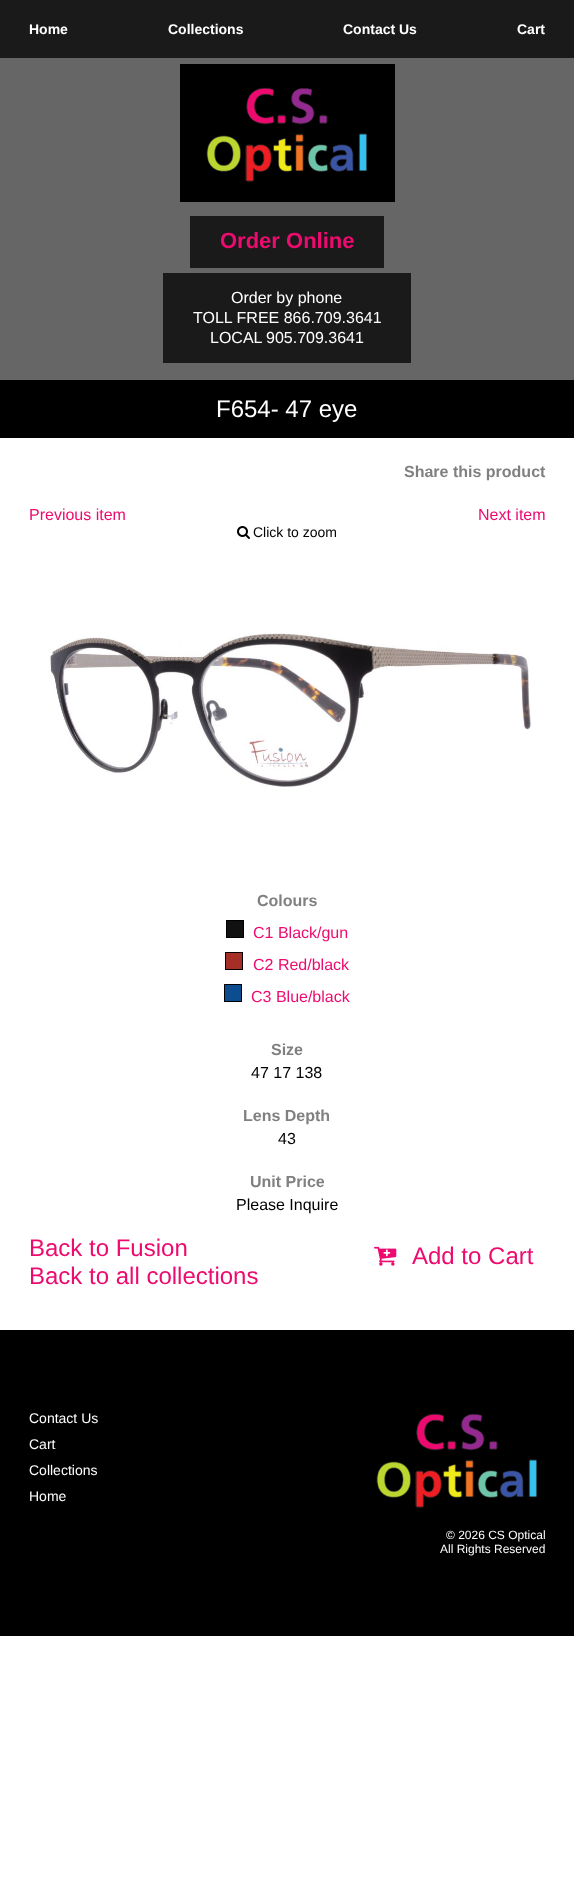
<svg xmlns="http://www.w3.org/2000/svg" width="574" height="1895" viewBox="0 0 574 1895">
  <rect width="100%" height="100%" fill="#ffffff"/>
  <rect x="0" y="0" width="574" height="58" fill="#1a1a1a"/>
  <text x="29" y="34" font-family="Arimo" font-size="14" font-weight="bold" fill="#ffffff">Home</text>
  <text x="168" y="34" font-family="Arimo" font-size="14" font-weight="bold" fill="#ffffff">Collections</text>
  <text x="343" y="34" font-family="Arimo" font-size="14" font-weight="bold" fill="#ffffff">Contact Us</text>
  <text x="517" y="34" font-family="Arimo" font-size="14" font-weight="bold" fill="#ffffff">Cart</text>
  <rect x="0" y="58" width="574" height="322" fill="#666666"/>
  <rect x="180" y="64" width="215" height="138" fill="#000000"/>
  <image x="206" y="87" width="162" height="95" href="img1.png"/>
  <rect x="190" y="216" width="194" height="52" fill="#1a1a1a"/>
  <text x="220" y="248" font-family="Arimo" font-size="22" font-weight="bold" fill="#ed0b6f">Order Online</text>
  <rect x="163" y="273" width="248" height="90" fill="#1a1a1a"/>
  <text x="231" y="303" font-family="Arimo" font-size="16" fill="#ffffff">Order by phone</text>
  <text x="193" y="323" font-family="Arimo" font-size="16" fill="#ffffff">TOLL FREE 866.709.3641</text>
  <text x="210" y="343" font-family="Arimo" font-size="16" fill="#ffffff">LOCAL</text>
  <text x="266" y="343" font-family="Arimo" font-size="16" fill="#ffffff">905.709.3641</text>
  <rect x="0" y="380" width="574" height="58" fill="#000000"/>
  <text x="216" y="417" font-family="Arimo" font-size="24" fill="#ffffff">F654- 47 eye</text>
  <text x="404" y="477" font-family="Arimo" font-size="16" font-weight="bold" fill="#808080">Share this product</text>
  <text x="29" y="520" font-family="Arimo" font-size="16" fill="#ed0b6f">Previous item</text>
  <text x="478" y="520" font-family="Arimo" font-size="16" fill="#ed0b6f">Next item</text>
  <image x="237" y="526" width="13" height="13" href="img2.png"/>
  <text x="253" y="537" font-family="Arimo" font-size="14" fill="#000000">Click to zoom</text>
  <image x="49" y="633" width="482" height="154" href="img3.png"/>
  <text x="257" y="906" font-family="Arimo" font-size="16" font-weight="bold" fill="#808080">Colours</text>
  <rect x="226.5" y="920.5" width="17" height="17" fill="#111111" stroke="#000000"/>
  <text x="253" y="938" font-family="Arimo" font-size="16" fill="#ed0b6f">C1 Black/gun</text>
  <rect x="225.5" y="952.5" width="17" height="17" fill="#a52e26" stroke="#000000"/>
  <text x="253" y="970" font-family="Arimo" font-size="16" fill="#ed0b6f">C2 Red/black</text>
  <rect x="224.5" y="984.5" width="17" height="17" fill="#0b4d8e" stroke="#000000"/>
  <text x="251" y="1002" font-family="Arimo" font-size="16" fill="#ed0b6f">C3 Blue/black</text>
  <text x="271" y="1055" font-family="Arimo" font-size="16" font-weight="bold" fill="#808080">Size</text>
  <text x="251" y="1078" font-family="Arimo" font-size="16" fill="#000000">47 17 138</text>
  <text x="243" y="1121" font-family="Arimo" font-size="16" font-weight="bold" fill="#808080">Lens Depth</text>
  <text x="278" y="1144" font-family="Arimo" font-size="16" fill="#000000">43</text>
  <text x="250" y="1187" font-family="Arimo" font-size="16" font-weight="bold" fill="#808080">Unit Price</text>
  <text x="236" y="1210" font-family="Arimo" font-size="16" fill="#000000">Please Inquire</text>
  <text x="29" y="1256" font-family="Arimo" font-size="24" fill="#ed0b6f">Back to Fusion</text>
  <text x="29" y="1284" font-family="Arimo" font-size="24" fill="#ed0b6f">Back to all collections</text>
  <image x="374" y="1246" width="23" height="20" href="img4.png"/>
  <text x="412" y="1264" font-family="Liberation Sans" font-size="24" fill="#ed0b6f">Add to Cart</text>
  <rect x="0" y="1330" width="574" height="306" fill="#000000"/>
  <text x="29" y="1423" font-family="Arimo" font-size="14" fill="#ffffff">Contact Us</text>
  <text x="29" y="1449" font-family="Arimo" font-size="14" fill="#ffffff">Cart</text>
  <text x="29" y="1475" font-family="Arimo" font-size="14" fill="#ffffff">Collections</text>
  <text x="29" y="1501" font-family="Arimo" font-size="14" fill="#ffffff">Home</text>
  <image x="376" y="1413" width="162" height="95" href="img1.png"/>
  <text x="446" y="1539" font-family="Arimo" font-size="12" fill="#ffffff">© 2026 CS Optical</text>
  <text x="440" y="1553" font-family="Arimo" font-size="12" fill="#ffffff">All Rights Reserved</text>
</svg>
